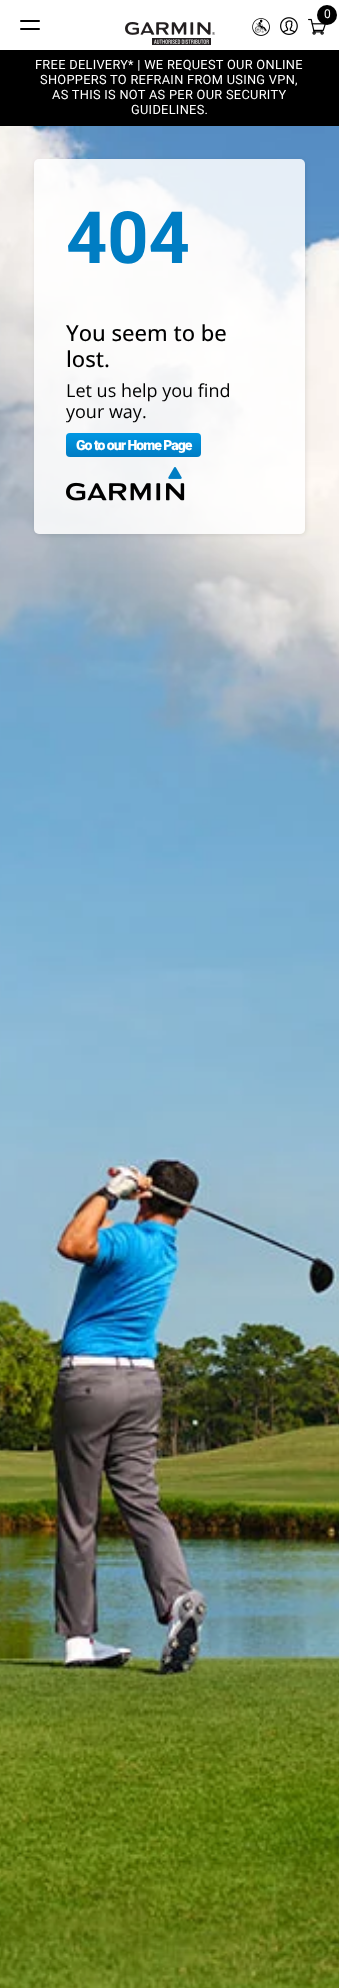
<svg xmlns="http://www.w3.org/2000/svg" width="339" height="1988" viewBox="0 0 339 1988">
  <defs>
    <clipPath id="clip1"><path d="M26 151H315V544H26ZM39 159H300C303 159 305 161 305 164V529C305 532 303 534 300 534H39C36 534 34 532 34 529V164C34 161 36 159 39 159Z" clip-rule="evenodd"/></clipPath>
    <filter id="blur1" x="-50%" y="-200%" width="200%" height="500%"><feGaussianBlur stdDeviation="2.5"/></filter>
    <linearGradient id="g1" gradientUnits="userSpaceOnUse" x1="134" y1="457" x2="134" y2="433"><stop offset="0" stop-color="#007cc3"/><stop offset="1" stop-color="#0097e3"/></linearGradient>
  </defs>
  <rect width="100%" height="100%" fill="#ffffff"/>
  <image x="308" y="18" width="18" height="17" href="img1.png"/>
  <circle cx="327" cy="15" r="10" fill="#000000"/>
  <text x="324" y="18" font-family="Roboto" font-size="12" fill="#ffffff">0</text>
  <image x="252" y="18" width="18" height="18" href="img2.png"/>
  <image x="280" y="17" width="18" height="18" href="img3.png"/>
  <rect x="20" y="20" width="20" height="2" rx="1" fill="#000000"/>
  <rect x="20" y="28" width="20" height="2" rx="1" fill="#000000"/>
  <image x="125" y="22" width="90" height="23" href="img4.png"/>
  <rect x="0" y="50" width="339" height="76" fill="#000000"/>
  <text x="35" y="69" font-family="Roboto" font-size="12.8" letter-spacing="0.3" fill="#ffffff">FREE DELIVERY* | WE REQUEST OUR ONLINE</text>
  <text x="40" y="84" font-family="Roboto" font-size="12.8" letter-spacing="0.3" fill="#ffffff">SHOPPERS TO REFRAIN FROM USING VPN,</text>
  <text x="52" y="99" font-family="Roboto" font-size="12.8" letter-spacing="0.3" fill="#ffffff">AS THIS IS NOT AS PER OUR SECURITY</text>
  <text x="131" y="114" font-family="Roboto" font-size="12.8" letter-spacing="0.3" fill="#ffffff">GUIDELINES.</text>
  <image x="0" y="126" width="339" height="1862" href="img5.png"/>
  <g clip-path="url(#clip1)">
    <rect x="35" y="160" width="271" height="375" rx="5" fill="#000000" fill-opacity="0.1" filter="url(#blur1)"/>
  </g>
  <rect x="34" y="159" width="271" height="375" rx="5" fill="#ffffff" fill-opacity="0.85"/>
  <text x="66" y="263" font-family="Roboto" font-size="72" font-weight="bold" fill="#007dc3">404</text>
  <text x="66" y="341" font-family="Open Sans" font-size="22" font-weight="500" fill="#000000">You seem to be</text>
  <text x="66" y="367" font-family="Open Sans" font-size="22" font-weight="500" fill="#000000">lost.</text>
  <text x="66" y="397" font-family="Open Sans" font-size="18" fill="#000000">Let us help you find</text>
  <text x="66" y="418" font-family="Open Sans" font-size="18" fill="#000000">your way.</text>
  <rect x="66" y="433" width="135" height="24" rx="4" fill="url(#g1)"/>
  <text x="76" y="450" font-family="Roboto" font-size="14" font-weight="900" letter-spacing="-1" fill="#ffffff">Go to our Home Page</text>
  <image x="66" y="467" width="119" height="34" href="img6.png"/>
</svg>
